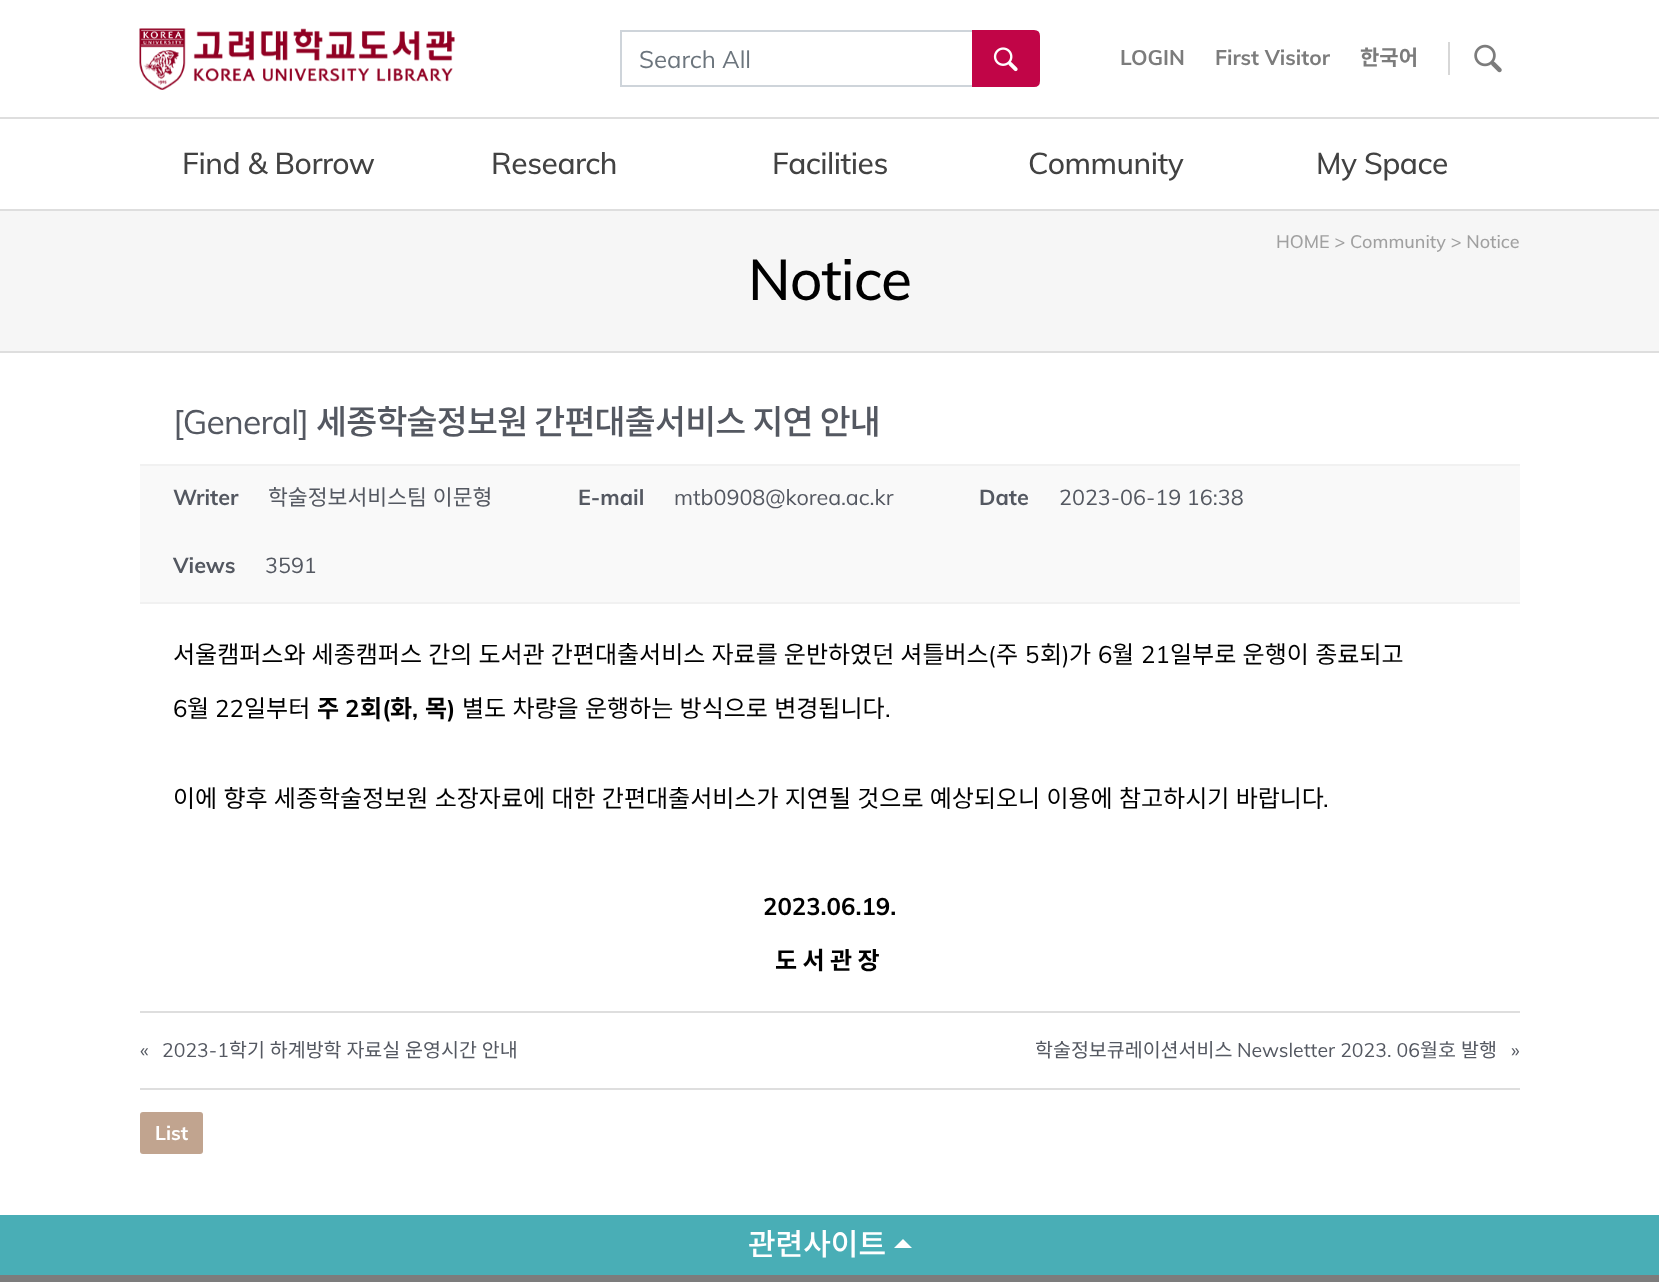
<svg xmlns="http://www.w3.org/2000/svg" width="1659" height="1282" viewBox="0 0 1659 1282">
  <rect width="100%" height="100%" fill="#ffffff"/>
  <rect x="0" y="117" width="1659" height="2" fill="#dedede"/>
  <image x="139" y="28" width="316" height="62" href="img1.png"/>
  <rect x="621" y="31" width="352" height="55" fill="none" stroke="#ced4da" stroke-width="2"/>
  <text x="639" y="68" font-family="Muli" font-size="24" fill="#6c757d">Search All</text>
  <path d="M973 31H1034C1037 31 1039 33 1039 36V81C1039 84 1037 86 1034 86H973Z" fill="#c10547" stroke="#c10547" stroke-width="2"/>
  <image x="993" y="47" width="25" height="25" href="img2.png"/>
  <text x="1120" y="65" font-family="Muli" font-size="21" font-weight="bold" fill="#7c7c7c">LOGIN</text>
  <text x="1215" y="65" font-family="Muli" font-size="21" font-weight="bold" fill="#7c7c7c">First Visitor</text>
  <text x="1360" y="65" font-family="Noto Sans KR" font-size="21" font-weight="bold" fill="#7c7c7c">한국어</text>
  <rect x="1448" y="42" width="2" height="33" fill="#d7d7d7"/>
  <image x="1474" y="44" width="28" height="29" href="img3.png"/>
  <rect x="0" y="209" width="1659" height="2" fill="#dedede"/>
  <text x="182" y="174" font-family="Muli" font-size="30" font-weight="500" letter-spacing="-0.5" fill="#424242">Find &amp; Borrow</text>
  <text x="491" y="174" font-family="Muli" font-size="30" font-weight="500" letter-spacing="-0.5" fill="#424242">Research</text>
  <text x="772" y="174" font-family="Muli" font-size="30" font-weight="500" letter-spacing="-0.5" fill="#424242">Facilities</text>
  <text x="1028" y="174" font-family="Muli" font-size="30" font-weight="500" letter-spacing="-0.5" fill="#424242">Community</text>
  <text x="1316" y="174" font-family="Muli" font-size="30" font-weight="500" letter-spacing="-0.5" fill="#424242">My Space</text>
  <rect x="0" y="211" width="1659" height="140" fill="#f6f6f6"/>
  <rect x="0" y="351" width="1659" height="2" fill="#dedede"/>
  <text x="1276" y="248" font-family="Muli" font-size="18" font-weight="500" fill="#a0a0a0">HOME &gt; Community &gt; Notice</text>
  <text x="748" y="300" font-family="Muli" font-size="57" font-weight="500" letter-spacing="-1" fill="#000000">Notice</text>
  <text x="173" y="434" font-family="Muli" font-size="33.6" letter-spacing="-0.7" fill="#545861">[General]</text>
  <text x="316" y="434" font-family="Noto Sans KR" font-size="33.6" font-weight="500" letter-spacing="-0.7" fill="#545861">세종학술정보원 간편대출서비스 지연 안내</text>
  <rect x="140" y="466" width="1380" height="136" fill="#f9f9f9"/>
  <rect x="140" y="464" width="1380" height="2" fill="#f1f1f1"/>
  <rect x="140" y="602" width="1380" height="2" fill="#f1f1f1"/>
  <text x="173" y="505" font-family="Muli" font-size="21.6" font-weight="bold" fill="#545861">Writer</text>
  <text x="268" y="505" word-spacing="1" font-family="Noto Sans KR" font-size="21.6" fill="#545861">학술정보서비스팀 이문형</text>
  <text x="578" y="505" font-family="Muli" font-size="21.6" font-weight="bold" fill="#545861">E-mail</text>
  <text x="674" y="505" font-family="Muli" font-size="21.6" fill="#545861">mtb0908@korea.ac.kr</text>
  <text x="979" y="505" font-family="Muli" font-size="21.6" font-weight="bold" fill="#545861">Date</text>
  <text x="1059" y="505" font-family="Muli" font-size="21.6" fill="#545861">2023-06-19 16:38</text>
  <text x="173" y="573" font-family="Muli" font-size="21.6" font-weight="bold" fill="#545861">Views</text>
  <text x="265" y="573" font-family="Muli" font-size="21.6" fill="#545861">3591</text>
  <text x="173" y="663" word-spacing="0.75" font-family="Noto Sans KR" font-size="24" fill="#000000">서울캠퍼스와 세종캠퍼스 간의 도서관 간편대출서비스 자료를 운반하였던 셔틀버스</text>
  <text x="988" y="663" font-family="Muli" font-size="24" fill="#000000">(</text>
  <text x="996" y="663" font-family="Noto Sans KR" font-size="24" fill="#000000">주</text>
  <text x="1025" y="663" font-family="Muli" font-size="24" fill="#000000">5</text>
  <text x="1040" y="663" font-family="Noto Sans KR" font-size="24" fill="#000000">회</text>
  <text x="1062" y="663" font-family="Muli" font-size="24" fill="#000000">)</text>
  <text x="1069" y="663" font-family="Noto Sans KR" font-size="24" fill="#000000">가</text>
  <text x="1098" y="663" font-family="Muli" font-size="24" fill="#000000">6</text>
  <text x="1112" y="663" font-family="Noto Sans KR" font-size="24" fill="#000000">월</text>
  <text x="1141" y="663" font-family="Muli" font-size="24" fill="#000000">21</text>
  <text x="1170" y="663" word-spacing="1" font-family="Noto Sans KR" font-size="24" fill="#000000">일부로 운행이 종료되고</text>
  <text x="173" y="717" font-family="Muli" font-size="24" fill="#000000">6</text>
  <text x="187" y="717" font-family="Noto Sans KR" font-size="24" fill="#000000">월</text>
  <text x="215" y="717" font-family="Muli" font-size="24" fill="#000000">22</text>
  <text x="244" y="717" font-family="Noto Sans KR" font-size="24" fill="#000000">일부터</text>
  <text x="317" y="717" font-family="Noto Sans KR" font-size="24" font-weight="bold" fill="#000000">주</text>
  <text x="345" y="717" font-family="Muli" font-size="24" font-weight="bold" fill="#000000">2</text>
  <text x="360" y="717" font-family="Noto Sans KR" font-size="24" font-weight="bold" fill="#000000">회</text>
  <text x="382" y="717" font-family="Muli" font-size="24" font-weight="bold" fill="#000000">(</text>
  <text x="390" y="717" font-family="Noto Sans KR" font-size="24" font-weight="bold" fill="#000000">화</text>
  <text x="412" y="717" font-family="Muli" font-size="24" font-weight="bold" fill="#000000">,</text>
  <text x="425" y="717" font-family="Noto Sans KR" font-size="24" font-weight="bold" fill="#000000">목</text>
  <text x="447" y="717" font-family="Muli" font-size="24" font-weight="bold" fill="#000000">)</text>
  <text x="462" y="717" word-spacing="0.9" font-family="Noto Sans KR" font-size="24" fill="#000000">별도 차량을 운행하는 방식으로 변경됩니다</text>
  <text x="885" y="717" font-family="Muli" font-size="24" fill="#000000">.</text>
  <text x="173" y="807" word-spacing="0.9" font-family="Noto Sans KR" font-size="24" fill="#000000">이에 향후 세종학술정보원 소장자료에 대한 간편대출서비스가 지연될 것으로 예상되오니 이용에 참고하시기 바랍니다</text>
  <text x="1323" y="807" font-family="Muli" font-size="24" fill="#000000">.</text>
  <text x="763" y="915" font-family="Muli" font-size="24" font-weight="bold" fill="#000000">2023.06.19.</text>
  <text x="775" y="969" font-family="Noto Sans KR" font-size="24" font-weight="bold" fill="#000000">도 서 관 장</text>
  <rect x="140" y="1011" width="1380" height="2" fill="#dedede"/>
  <text x="140" y="1057" font-family="Muli" font-size="19.5" fill="#545861">«</text>
  <text x="162" y="1057" font-family="Muli" font-size="19.5" fill="#545861">2023-1</text>
  <text x="229" y="1057" word-spacing="0.5" font-family="Noto Sans KR" font-size="19.5" fill="#545861">학기 하계방학 자료실 운영시간 안내</text>
  <text x="1035" y="1057" font-family="Noto Sans KR" font-size="19.5" fill="#545861">학술정보큐레이션서비스</text>
  <text x="1237" y="1057" font-family="Muli" font-size="19.5" fill="#545861">Newsletter 2023. 06</text>
  <text x="1420" y="1057" font-family="Noto Sans KR" font-size="19.5" fill="#545861">월호</text>
  <text x="1461" y="1057" font-family="Noto Sans KR" font-size="19.5" fill="#545861">발행</text>
  <text x="1511" y="1057" font-family="Muli" font-size="19.5" fill="#545861">»</text>
  <rect x="140" y="1088" width="1380" height="2" fill="#dedede"/>
  <rect x="140" y="1112" width="63" height="42" rx="3" fill="#c1a48f"/>
  <text x="155" y="1140" font-family="Muli" font-size="19.5" font-weight="bold" fill="#ffffff">List</text>
  <rect x="0" y="1215" width="1659" height="60" fill="#49aeb6"/>
  <text x="748" y="1255" font-family="Noto Sans KR" font-size="30" font-weight="500" fill="#ffffff">관련사이트</text>
  <path d="M912 1248H894L903 1239Z" fill="#ffffff"/>
  <rect x="0" y="1275" width="1659" height="7" fill="#7c7c7c"/>
</svg>
